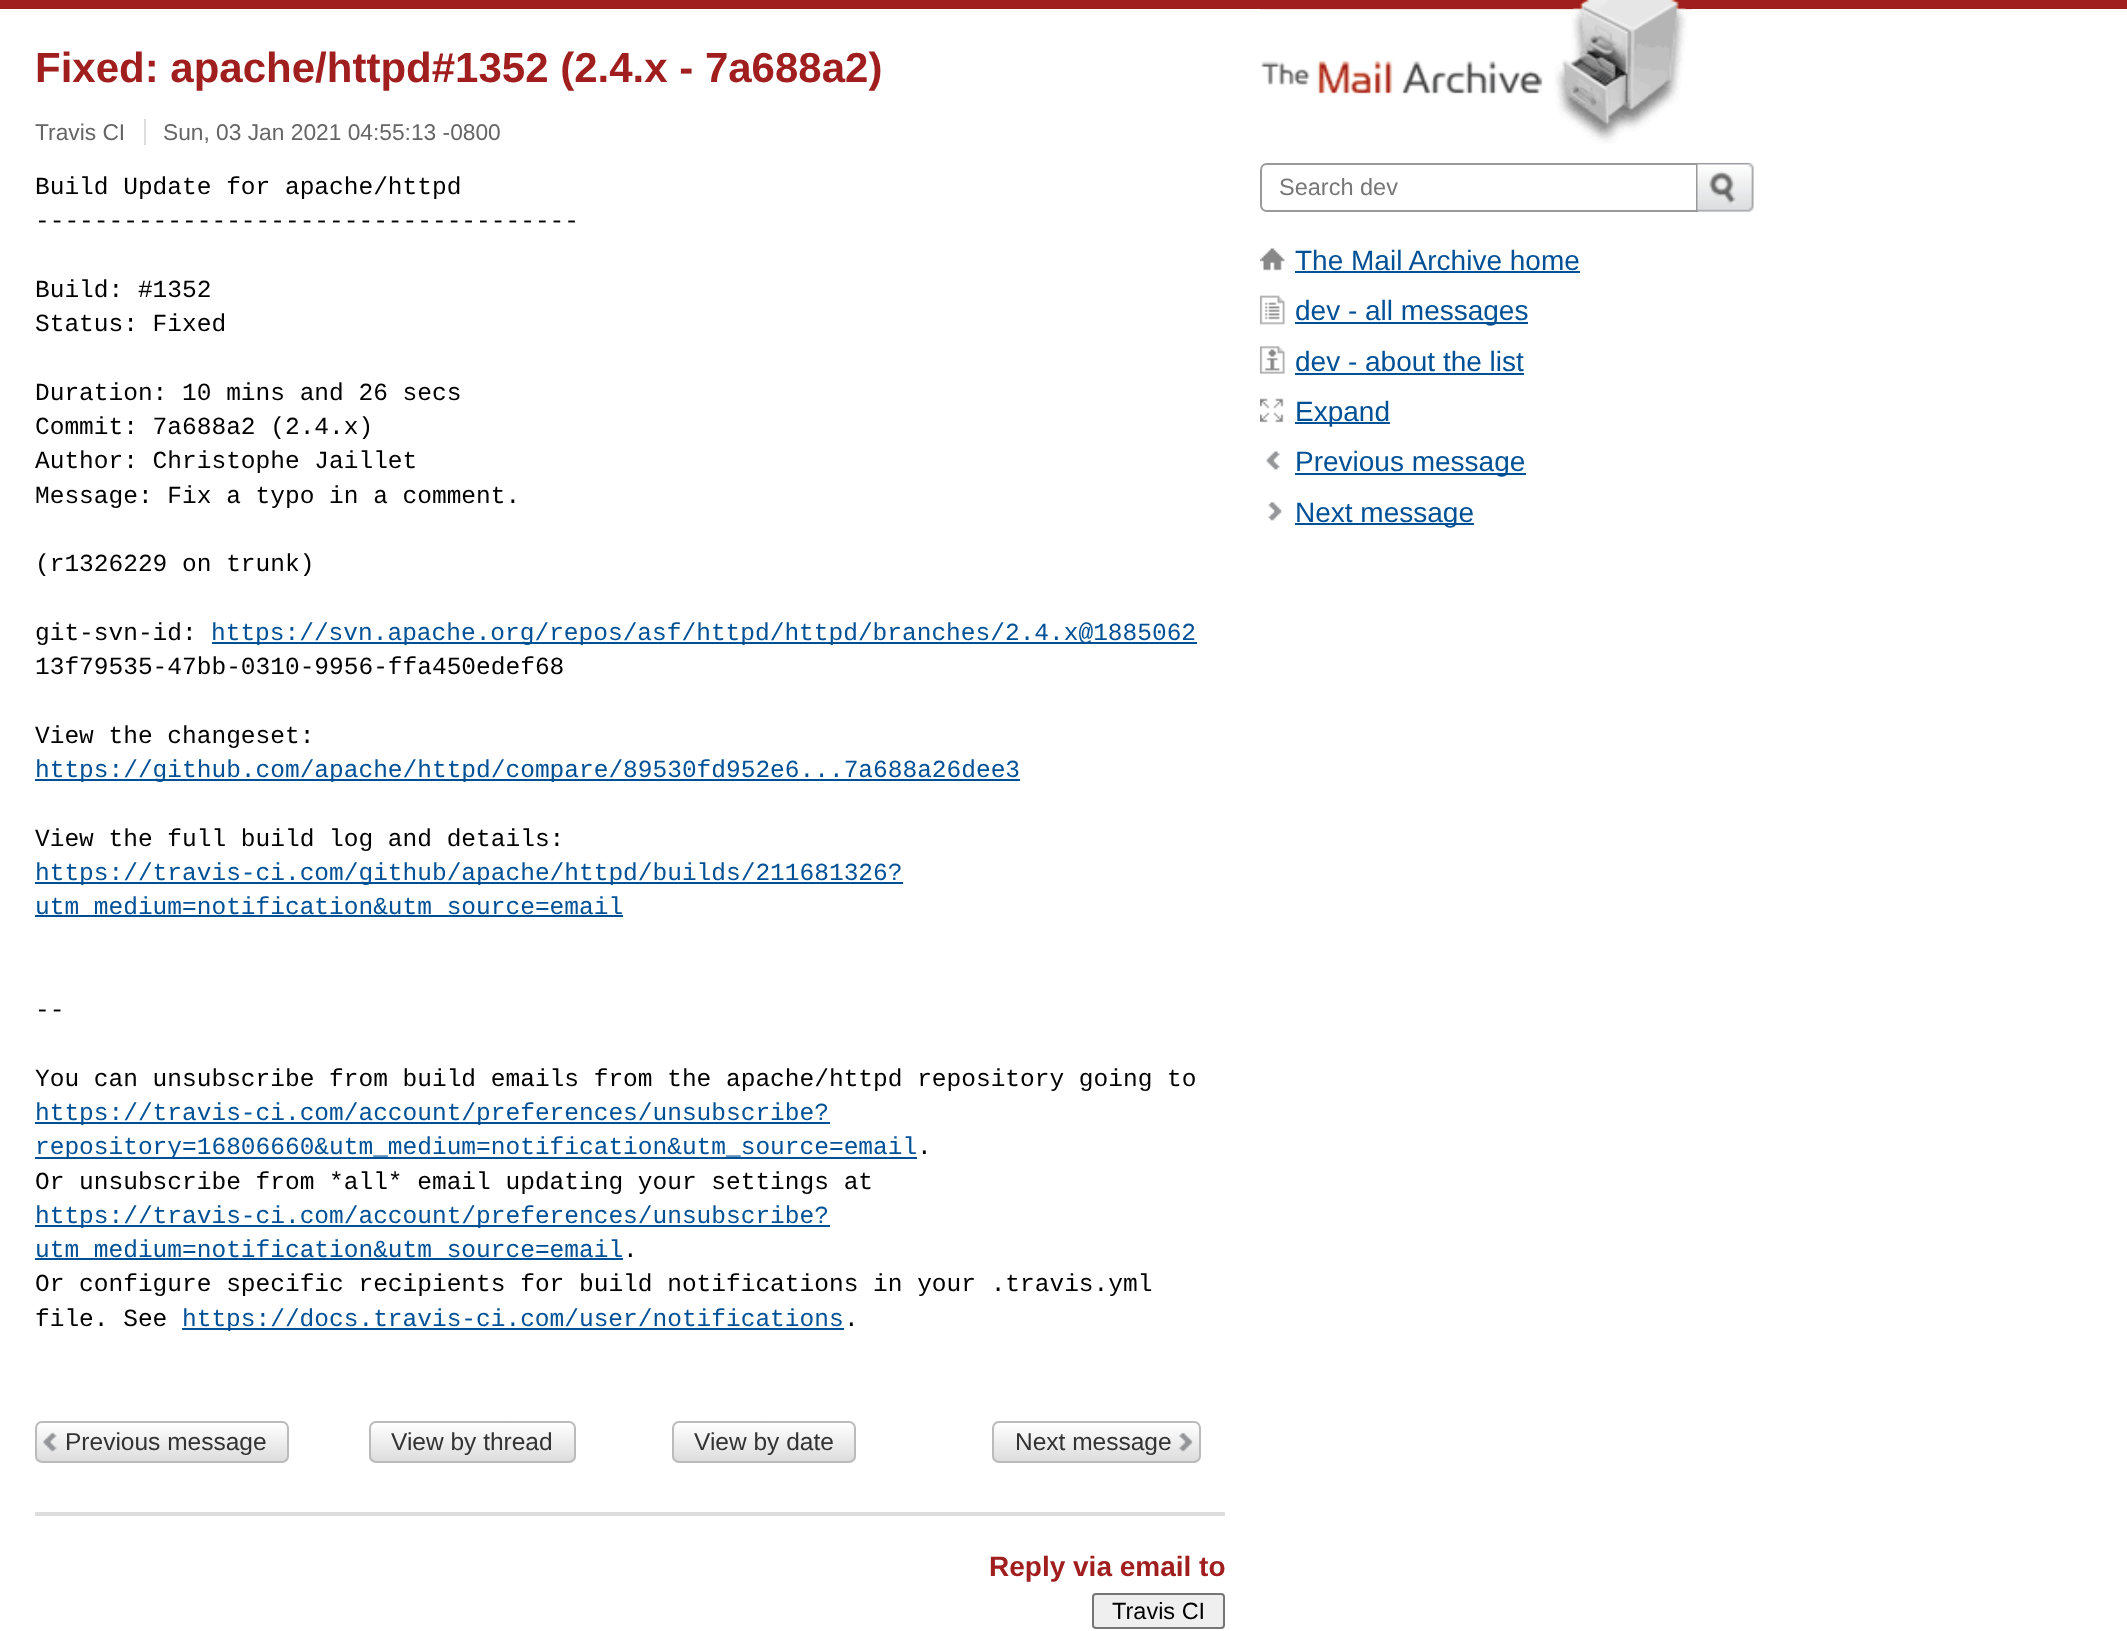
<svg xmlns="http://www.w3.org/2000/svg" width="2127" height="1631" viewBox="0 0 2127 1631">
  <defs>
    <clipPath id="clip1"><rect x="369" y="1421" width="207" height="42" rx="7"/></clipPath>
    <linearGradient id="g1" gradientUnits="userSpaceOnUse" x1="473" y1="1423" x2="473" y2="1461"><stop offset="0" stop-color="#ffffff"/><stop offset="1" stop-color="#dddddd"/></linearGradient>
    <clipPath id="clip2"><rect x="672" y="1421" width="184" height="42" rx="7"/></clipPath>
    <linearGradient id="g2" gradientUnits="userSpaceOnUse" x1="764" y1="1423" x2="764" y2="1461"><stop offset="0" stop-color="#ffffff"/><stop offset="1" stop-color="#dddddd"/></linearGradient>
  </defs>
  <rect width="100%" height="100%" fill="#ffffff"/>
  <rect x="0" y="0" width="2127" height="9" fill="#a01e1e"/>
  <text x="35" y="82" font-family="Liberation Sans" font-size="42" font-weight="bold" fill="#a01e1e">Fixed: apache/httpd#1352 (2.4.x - 7a688a2)</text>
  <text x="35" y="140" font-family="Liberation Sans" font-size="22.75" fill="#666666">Travis CI</text>
  <rect x="144" y="119" width="2" height="26" fill="#dddddd"/>
  <text x="163" y="140" font-family="Liberation Sans" font-size="22.75" fill="#666666">Sun, 03 Jan 2021 04:55:13 -0800</text>
  <text x="35" y="194" font-family="Liberation Mono" font-size="24.5" fill="#000000">Build Update for apache/httpd</text>
  <text x="35" y="228" font-family="Liberation Mono" font-size="24.5" fill="#000000">-------------------------------------</text>
  <text x="35" y="297" font-family="Liberation Mono" font-size="24.5" fill="#000000">Build: #1352</text>
  <text x="35" y="331" font-family="Liberation Mono" font-size="24.5" fill="#000000">Status: Fixed</text>
  <text x="35" y="400" font-family="Liberation Mono" font-size="24.5" fill="#000000">Duration: 10 mins and 26 secs</text>
  <text x="35" y="434" font-family="Liberation Mono" font-size="24.5" fill="#000000">Commit: 7a688a2 (2.4.x)</text>
  <text x="35" y="468" font-family="Liberation Mono" font-size="24.5" fill="#000000">Author: Christophe Jaillet</text>
  <text x="35" y="503" font-family="Liberation Mono" font-size="24.5" fill="#000000">Message: Fix a typo in a comment.</text>
  <text x="35" y="571" font-family="Liberation Mono" font-size="24.5" fill="#000000">(r1326229 on trunk)</text>
  <text x="35" y="640" font-family="Liberation Mono" font-size="24.5" fill="#000000">git-svn-id:</text>
  <rect x="212" y="642" width="985" height="2" fill="#005096"/>
  <text x="211" y="640" font-family="Liberation Mono" font-size="24.5" fill="#005096">https://svn.apache.org/repos/asf/httpd/httpd/branches/2.4.x@1885062</text>
  <text x="35" y="674" font-family="Liberation Mono" font-size="24.5" fill="#000000">13f79535-47bb-0310-9956-ffa450edef68</text>
  <text x="35" y="743" font-family="Liberation Mono" font-size="24.5" fill="#000000">View the changeset:</text>
  <rect x="35" y="779" width="985" height="2" fill="#005096"/>
  <text x="35" y="777" font-family="Liberation Mono" font-size="24.5" fill="#005096">https://github.com/apache/httpd/compare/89530fd952e6...7a688a26dee3</text>
  <text x="35" y="846" font-family="Liberation Mono" font-size="24.5" fill="#000000">View the full build log and details:</text>
  <rect x="35" y="882" width="868" height="2" fill="#005096"/>
  <text x="35" y="880" font-family="Liberation Mono" font-size="24.5" fill="#005096">https://travis-ci.com/github/apache/httpd/builds/211681326?</text>
  <rect x="35" y="915" width="588" height="2" fill="#005096"/>
  <text x="35" y="914" font-family="Liberation Mono" font-size="24.5" fill="#005096">utm_medium=notification&amp;utm_source=email</text>
  <text x="35" y="1017" font-family="Liberation Mono" font-size="24.5" fill="#000000">--</text>
  <text x="35" y="1086" font-family="Liberation Mono" font-size="24.5" fill="#000000">You can unsubscribe from build emails from the apache/httpd repository going to</text>
  <rect x="35" y="1122" width="795" height="2" fill="#005096"/>
  <text x="35" y="1120" font-family="Liberation Mono" font-size="24.5" fill="#005096">https://travis-ci.com/account/preferences/unsubscribe?</text>
  <rect x="35" y="1157" width="882" height="2" fill="#005096"/>
  <text x="35" y="1154" font-family="Liberation Mono" font-size="24.5" fill="#005096">repository=16806660&amp;utm_medium=notification&amp;utm_source=email</text>
  <text x="917" y="1154" font-family="Liberation Mono" font-size="24.5" fill="#000000">.</text>
  <text x="35" y="1189" font-family="Liberation Mono" font-size="24.5" fill="#000000">Or unsubscribe from *all* email updating your settings at</text>
  <rect x="35" y="1225" width="795" height="2" fill="#005096"/>
  <text x="35" y="1223" font-family="Liberation Mono" font-size="24.5" fill="#005096">https://travis-ci.com/account/preferences/unsubscribe?</text>
  <rect x="35" y="1258" width="588" height="2" fill="#005096"/>
  <text x="35" y="1257" font-family="Liberation Mono" font-size="24.5" fill="#005096">utm_medium=notification&amp;utm_source=email</text>
  <text x="623" y="1257" font-family="Liberation Mono" font-size="24.5" fill="#000000">.</text>
  <text x="35" y="1291" font-family="Liberation Mono" font-size="24.5" fill="#000000">Or configure specific recipients for build notifications in your .travis.yml</text>
  <text x="35" y="1326" font-family="Liberation Mono" font-size="24.5" fill="#000000">file. See</text>
  <rect x="182" y="1328" width="662" height="2" fill="#005096"/>
  <text x="182" y="1326" font-family="Liberation Mono" font-size="24.5" fill="#005096">https://docs.travis-ci.com/user/notifications</text>
  <text x="844" y="1326" font-family="Liberation Mono" font-size="24.5" fill="#000000">.</text>
  <image x="35" y="1421" width="254" height="42" href="img1.png"/>
  <rect x="36" y="1422" width="252" height="40" rx="6" fill="none" stroke="#bbbbbb" stroke-width="2"/>
  <text x="65" y="1450" font-family="Liberation Sans" font-size="24.5" fill="#333333">Previous message</text>
  <g clip-path="url(#clip1)">
    <rect x="369" y="1423" width="207" height="38" fill="url(#g1)"/>
  </g>
  <rect x="370" y="1422" width="205" height="40" rx="6" fill="none" stroke="#bbbbbb" stroke-width="2"/>
  <text x="391" y="1450" font-family="Liberation Sans" font-size="24.5" fill="#333333">View by thread</text>
  <g clip-path="url(#clip2)">
    <rect x="672" y="1423" width="184" height="38" fill="url(#g2)"/>
  </g>
  <rect x="673" y="1422" width="182" height="40" rx="6" fill="none" stroke="#bbbbbb" stroke-width="2"/>
  <text x="694" y="1450" font-family="Liberation Sans" font-size="24.5" fill="#333333">View by date</text>
  <image x="992" y="1421" width="208" height="42" href="img2.png"/>
  <rect x="993" y="1422" width="207" height="40" rx="6" fill="none" stroke="#bbbbbb" stroke-width="2"/>
  <text x="1015" y="1450" font-family="Liberation Sans" font-size="24.5" fill="#333333">Next message</text>
  <rect x="35" y="1512" width="1190" height="4" fill="#dddddd"/>
  <text x="989" y="1576" font-family="Liberation Sans" font-size="28" font-weight="bold" fill="#a01e1e">Reply via email to</text>
  <rect x="1093" y="1594" width="131" height="34" rx="3" fill="#efefef" stroke="#767676" stroke-width="2"/>
  <text x="1112" y="1619" font-family="Liberation Sans" font-size="23.5" fill="#000000">Travis CI</text>
  <image x="1260" y="0" width="433" height="144" href="img3.png"/>
  <path d="M1267 164H1697V211H1267C1263.5 211 1261 208.5 1261 205V170C1261 166.5 1263.5 164 1267 164Z" fill="none" stroke="#999999" stroke-width="2"/>
  <text x="1279" y="195" font-family="Liberation Sans" font-size="23.5" fill="#777777">Search dev</text>
  <image x="1697" y="162" width="57" height="50" href="img4.png"/>
  <image x="1260" y="248" width="25" height="23" href="img5.png"/>
  <text x="1295" y="270" font-family="Liberation Sans" font-size="28" fill="#005096">The Mail Archive home</text>
  <rect x="1295" y="271" width="285" height="2" fill="#005096"/>
  <image x="1260" y="295" width="25" height="30" href="img6.png"/>
  <rect x="1295" y="322" width="233" height="2" fill="#005096"/>
  <text x="1295" y="320" font-family="Liberation Sans" font-size="28" fill="#005096">dev - all messages</text>
  <image x="1260" y="346" width="25" height="28" href="img7.png"/>
  <text x="1295" y="371" font-family="Liberation Sans" font-size="28" fill="#005096">dev - about the list</text>
  <rect x="1295" y="373" width="229" height="2" fill="#005096"/>
  <image x="1260" y="398" width="24" height="25" href="img8.png"/>
  <rect x="1295" y="422" width="95" height="2" fill="#005096"/>
  <text x="1295" y="421" font-family="Liberation Sans" font-size="28" fill="#005096">Expand</text>
  <image x="1266" y="451" width="14" height="19" href="img9.png"/>
  <rect x="1295" y="473" width="231" height="2" fill="#005096"/>
  <text x="1295" y="471" font-family="Liberation Sans" font-size="28" fill="#005096">Previous message</text>
  <image x="1268" y="502" width="14" height="19" href="img10.png"/>
  <rect x="1295" y="523" width="179" height="2" fill="#005096"/>
  <text x="1295" y="522" font-family="Liberation Sans" font-size="28" fill="#005096">Next message</text>
</svg>
